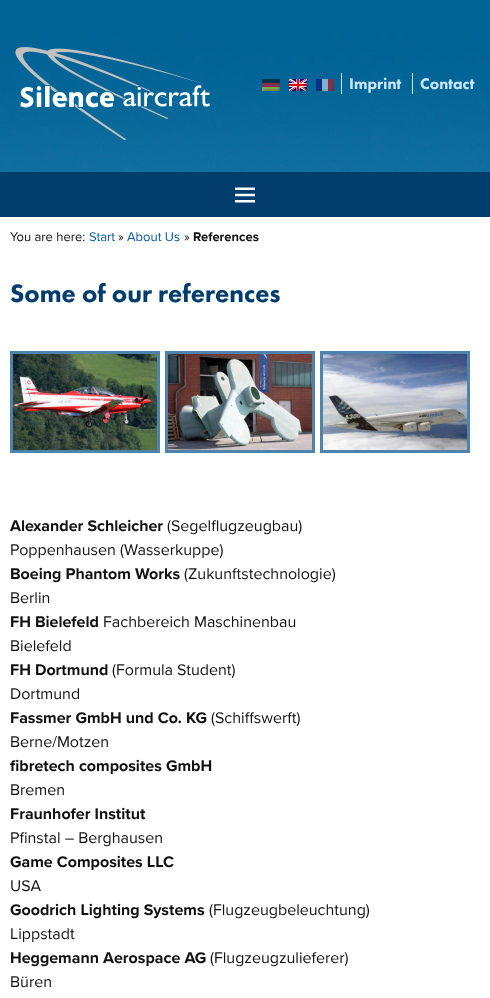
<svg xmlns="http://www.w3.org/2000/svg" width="490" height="998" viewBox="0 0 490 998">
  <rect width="100%" height="100%" fill="#ffffff"/>
  <image x="0" y="0" width="490" height="172" href="img1.png"/>
  <image x="15" y="47" width="195" height="93" href="img2.png"/>
  <image x="262" y="79" width="18" height="12" href="img3.png"/>
  <image x="289" y="79" width="18" height="12" href="img4.png"/>
  <image x="316" y="79" width="18" height="12" href="img5.png"/>
  <text x="349" y="89" font-family="Futura PT" font-size="16" font-weight="900" fill="#cae6fe">Imprint</text>
  <rect x="341" y="73" width="1" height="21" fill="#cae6fe"/>
  <text x="420" y="89" font-family="Futura PT" font-size="16" font-weight="900" fill="#cae6fe">Contact</text>
  <rect x="412" y="73" width="1" height="21" fill="#cae6fe"/>
  <rect x="0" y="172" width="490" height="45" fill="#033d6d"/>
  <image x="235" y="187" width="20" height="16" href="img6.png"/>
  <text x="10" y="241" font-family="Proxima Nova" font-size="13" fill="#111111">You are here:</text>
  <text x="89" y="241" font-family="Proxima Nova" font-size="13" fill="#075ba0">Start</text>
  <text x="118" y="241" font-family="Proxima Nova" font-size="13" fill="#111111">»</text>
  <text x="127" y="241" font-family="Proxima Nova" font-size="13" fill="#075ba0">About Us</text>
  <text x="184" y="241" font-family="Proxima Nova" font-size="13" fill="#111111">»</text>
  <text x="193" y="241" font-family="Proxima Nova" font-size="13" font-weight="bold" fill="#111111">References</text>
  <text x="10" y="302" font-family="Futura PT" font-size="26" font-weight="900" fill="#033d6d">Some of our references</text>
  <rect x="11.5" y="352.5" width="147" height="99" fill="none" stroke="#4e84ab" stroke-width="3"/>
  <image x="13" y="354" width="144" height="96" href="img7.png"/>
  <rect x="166.5" y="352.5" width="147" height="99" fill="none" stroke="#4e84ab" stroke-width="3"/>
  <image x="168" y="354" width="144" height="96" href="img8.png"/>
  <rect x="321.5" y="352.5" width="147" height="99" fill="none" stroke="#4e84ab" stroke-width="3"/>
  <image x="323" y="354" width="144" height="96" href="img9.png"/>
  <text x="10" y="531" font-family="Proxima Nova" font-size="16" font-weight="bold" fill="#111111">Alexander Schleicher</text>
  <text x="167" y="531" font-family="Proxima Nova" font-size="16" fill="#111111">(Segelflugzeugbau)</text>
  <text x="10" y="555" font-family="Proxima Nova" font-size="16" fill="#111111">Poppenhausen (Wasserkuppe)</text>
  <text x="10" y="579" font-family="Proxima Nova" font-size="16" font-weight="bold" fill="#111111">Boeing Phantom Works</text>
  <text x="184" y="579" font-family="Proxima Nova" font-size="16" fill="#111111">(Zukunftstechnologie)</text>
  <text x="10" y="603" font-family="Proxima Nova" font-size="16" fill="#111111">Berlin</text>
  <text x="10" y="627" font-family="Proxima Nova" font-size="16" font-weight="bold" fill="#111111">FH Bielefeld</text>
  <text x="103" y="627" font-family="Proxima Nova" font-size="16" fill="#111111">Fachbereich Maschinenbau</text>
  <text x="10" y="651" font-family="Proxima Nova" font-size="16" fill="#111111">Bielefeld</text>
  <text x="10" y="675" font-family="Proxima Nova" font-size="16" font-weight="bold" fill="#111111">FH Dortmund</text>
  <text x="112" y="675" font-family="Proxima Nova" font-size="16" fill="#111111">(Formula Student)</text>
  <text x="10" y="699" font-family="Proxima Nova" font-size="16" fill="#111111">Dortmund</text>
  <text x="10" y="723" font-family="Proxima Nova" font-size="16" font-weight="bold" fill="#111111">Fassmer GmbH und Co. KG</text>
  <text x="211" y="723" font-family="Proxima Nova" font-size="16" fill="#111111">(Schiffswerft)</text>
  <text x="10" y="747" font-family="Proxima Nova" font-size="16" fill="#111111">Berne/Motzen</text>
  <text x="10" y="771" font-family="Proxima Nova" font-size="16" font-weight="bold" fill="#111111">fibretech composites GmbH</text>
  <text x="10" y="795" font-family="Proxima Nova" font-size="16" fill="#111111">Bremen</text>
  <text x="10" y="819" font-family="Proxima Nova" font-size="16" font-weight="bold" fill="#111111">Fraunhofer Institut</text>
  <text x="10" y="843" font-family="Proxima Nova" font-size="16" fill="#111111">Pfinstal – Berghausen</text>
  <text x="10" y="867" font-family="Proxima Nova" font-size="16" font-weight="bold" fill="#111111">Game Composites LLC</text>
  <text x="10" y="891" font-family="Proxima Nova" font-size="16" fill="#111111">USA</text>
  <text x="10" y="915" font-family="Proxima Nova" font-size="16" font-weight="bold" fill="#111111">Goodrich Lighting Systems</text>
  <text x="209" y="915" font-family="Proxima Nova" font-size="16" fill="#111111">(Flugzeugbeleuchtung)</text>
  <text x="10" y="939" font-family="Proxima Nova" font-size="16" fill="#111111">Lippstadt</text>
  <text x="10" y="963" font-family="Proxima Nova" font-size="16" font-weight="bold" fill="#111111">Heggemann Aerospace AG</text>
  <text x="210" y="963" font-family="Proxima Nova" font-size="16" fill="#111111">(Flugzeugzulieferer)</text>
  <text x="10" y="987" font-family="Proxima Nova" font-size="16" fill="#111111">Büren</text>
</svg>
